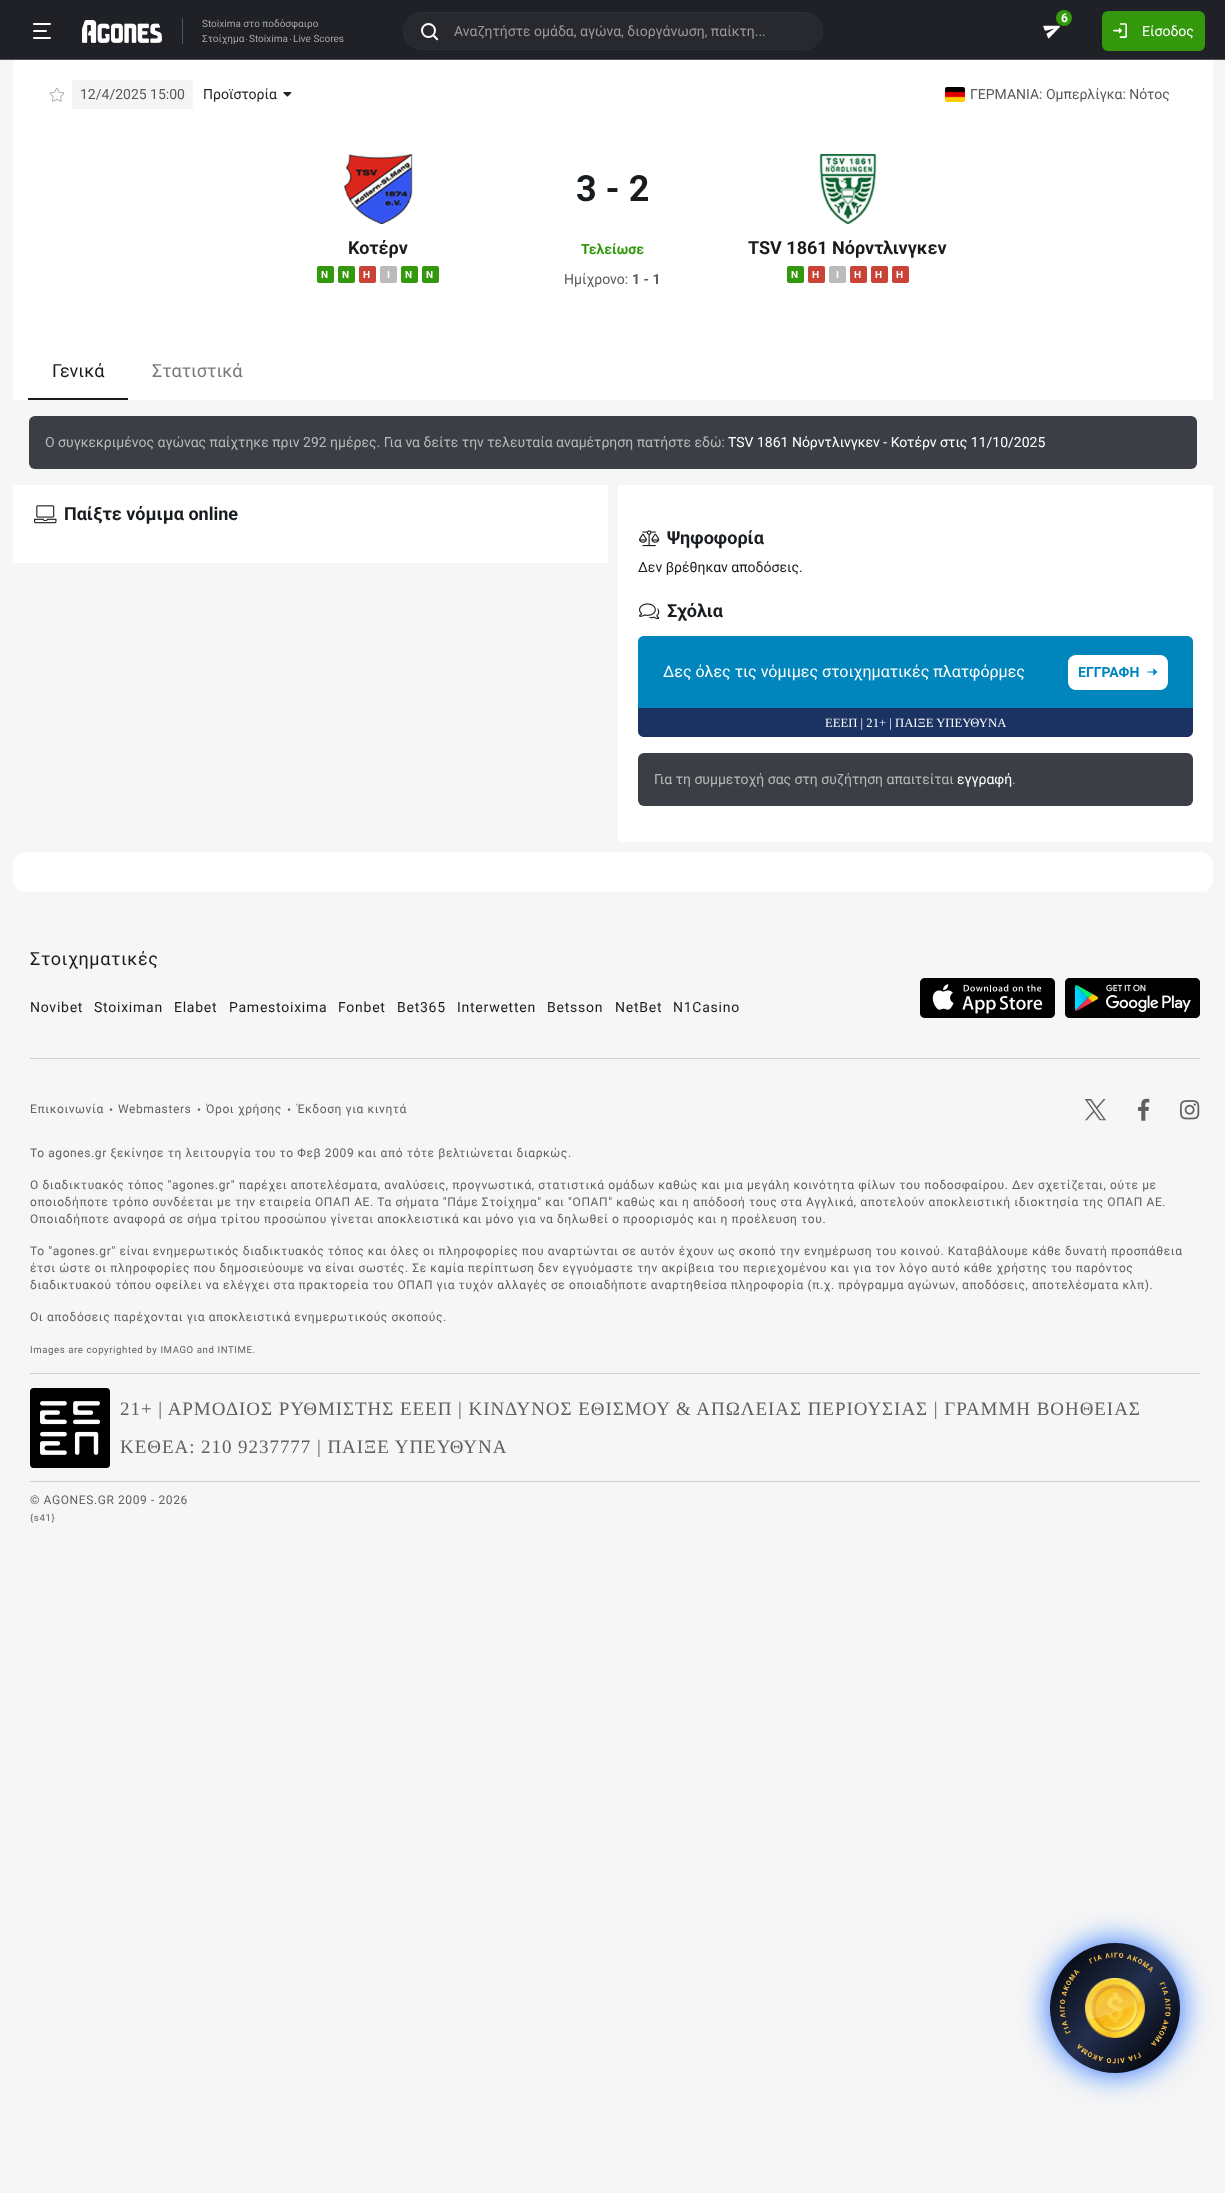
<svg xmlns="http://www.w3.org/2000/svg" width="1225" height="2193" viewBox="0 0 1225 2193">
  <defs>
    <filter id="blur1" x="-50%" y="-200%" width="200%" height="500%"><feGaussianBlur stdDeviation="15"/></filter>
    <linearGradient id="g1" gradientUnits="userSpaceOnUse" x1="1049" y1="1944" x2="1181" y2="2072"><stop offset="0" stop-color="#000000"/><stop offset="0.5" stop-color="#232f4f"/><stop offset="0.95" stop-color="#000000"/><stop offset="0.95" stop-color="#ffffff"/></linearGradient>
  </defs>
  <rect width="100%" height="100%" fill="#f6f6f6"/>
  <rect x="0" y="0" width="1225" height="59" fill="#1f2126"/>
  <rect x="0" y="59" width="1225" height="1" fill="#515356"/>
  <image x="33" y="23" width="18" height="16" href="img1.png"/>
  <image x="82" y="20" width="80" height="23" href="img2.png"/>
  <rect x="182" y="18" width="1" height="26" fill="#515365"/>
  <text x="202" y="27" font-family="Roboto" font-size="10" fill="#a6a6a6">Stoixima στο ποδόσφαιρο</text>
  <text x="202" y="42" font-family="Roboto" font-size="10" fill="#a6a6a6">Στοίχημα</text>
  <circle cx="246.5" cy="39.5" r="0.5" fill="#a6a6a6"/>
  <text x="249" y="42" font-family="Roboto" font-size="10" fill="#a6a6a6">Stoixima</text>
  <circle cx="290.5" cy="39.5" r="0.5" fill="#a6a6a6"/>
  <text x="293" y="42" font-family="Roboto" font-size="10" fill="#a6a6a6">Live Scores</text>
  <rect x="403.5" y="12.5" width="419" height="37" rx="18.5" fill="#27292f" stroke="#2c2f34"/>
  <image x="421" y="23" width="18" height="18" href="img3.png"/>
  <text x="454" y="36" font-family="Roboto" font-size="14" fill="#999999">Αναζητήστε ομάδα, αγώνα, διοργάνωση, παίκτη...</text>
  <image x="1043" y="25" width="17" height="14" href="img4.png"/>
  <circle cx="1064" cy="18" r="8" fill="#33980c"/>
  <text x="1061" y="22" font-family="Roboto" font-size="12" font-weight="bold" fill="#ffffff">6</text>
  <rect x="1102" y="11" width="103" height="40" rx="6" fill="#33980c"/>
  <image x="1113" y="23" width="14" height="15" href="img5.png"/>
  <text x="1142" y="36" font-family="Roboto" font-size="14" fill="#ffffff">Είσοδος</text>
  <rect x="13" y="60" width="1200" height="340" fill="#ffffff"/>
  <image x="49" y="87" width="16" height="15" href="img6.png"/>
  <rect x="72" y="80" width="121" height="29" fill="#f5f5f5"/>
  <text x="80" y="99" font-family="Roboto" font-size="14" fill="#595959">12/4/2025 15:00</text>
  <text x="203" y="99" font-family="Roboto" font-size="14" fill="#252525">Προϊστορία</text>
  <image x="283" y="92" width="9" height="5" href="img7.png"/>
  <image x="945" y="87" width="20" height="15" href="img8.png"/>
  <text x="970" y="99" font-family="Roboto" font-size="14" fill="#595959">ΓΕΡΜΑΝΙΑ: Ομπερλίγκα: Νότος</text>
  <image x="343" y="154" width="70" height="70" href="img9.png"/>
  <text x="348" y="254" font-family="Roboto" font-size="18" font-weight="bold" fill="#191c1f">Κοτέρν</text>
  <rect x="317" y="266" width="17" height="17" rx="2" fill="#33980c"/>
  <text x="321" y="278" font-family="Roboto" font-size="10" font-weight="bold" fill="#ffffff">N</text>
  <rect x="338" y="266" width="17" height="17" rx="2" fill="#33980c"/>
  <text x="342" y="278" font-family="Roboto" font-size="10" font-weight="bold" fill="#ffffff">N</text>
  <rect x="359" y="266" width="17" height="17" rx="2" fill="#ca4337"/>
  <text x="363" y="278" font-family="Roboto" font-size="10" font-weight="bold" fill="#ffffff">H</text>
  <rect x="380" y="266" width="17" height="17" rx="2" fill="#bbbbbb"/>
  <text x="387" y="278" font-family="Roboto" font-size="10" font-weight="bold" fill="#ffffff">I</text>
  <rect x="401" y="266" width="17" height="17" rx="2" fill="#33980c"/>
  <text x="405" y="278" font-family="Roboto" font-size="10" font-weight="bold" fill="#ffffff">N</text>
  <rect x="422" y="266" width="17" height="17" rx="2" fill="#33980c"/>
  <text x="426" y="278" font-family="Roboto" font-size="10" font-weight="bold" fill="#ffffff">N</text>
  <text x="576" y="201" font-family="Roboto" font-size="36" font-weight="bold" fill="#191c1f">3 - 2</text>
  <text x="581" y="254" font-family="Roboto" font-size="14" font-weight="bold" fill="#33980c">Τελείωσε</text>
  <text x="564" y="284" font-family="Roboto" font-size="14" fill="#595959">Ημίχρονο:</text>
  <text x="632" y="284" font-family="Roboto" font-size="14" font-weight="bold" fill="#595959">1 - 1</text>
  <image x="819" y="154" width="58" height="70" href="img10.png"/>
  <text x="748" y="254" font-family="Roboto" font-size="18" font-weight="bold" fill="#191c1f">TSV 1861 Νόρντλινγκεν</text>
  <rect x="787" y="266" width="17" height="17" rx="2" fill="#33980c"/>
  <text x="791" y="278" font-family="Roboto" font-size="10" font-weight="bold" fill="#ffffff">N</text>
  <rect x="808" y="266" width="17" height="17" rx="2" fill="#ca4337"/>
  <text x="812" y="278" font-family="Roboto" font-size="10" font-weight="bold" fill="#ffffff">H</text>
  <rect x="829" y="266" width="17" height="17" rx="2" fill="#bbbbbb"/>
  <text x="836" y="278" font-family="Roboto" font-size="10" font-weight="bold" fill="#ffffff">I</text>
  <rect x="850" y="266" width="17" height="17" rx="2" fill="#ca4337"/>
  <text x="854" y="278" font-family="Roboto" font-size="10" font-weight="bold" fill="#ffffff">H</text>
  <rect x="871" y="266" width="17" height="17" rx="2" fill="#ca4337"/>
  <text x="875" y="278" font-family="Roboto" font-size="10" font-weight="bold" fill="#ffffff">H</text>
  <rect x="892" y="266" width="17" height="17" rx="2" fill="#ca4337"/>
  <text x="896" y="278" font-family="Roboto" font-size="10" font-weight="bold" fill="#ffffff">H</text>
  <text x="52" y="377" font-family="Roboto" font-size="18" fill="#191c1f">Γενικά</text>
  <rect x="28" y="398" width="100" height="2" fill="#191c1f"/>
  <text x="152" y="377" font-family="Roboto" font-size="18" fill="#797979">Στατιστικά</text>
  <rect x="29" y="416" width="1168" height="53" rx="6" fill="#3c3e46"/>
  <text x="45" y="447" font-family="Roboto" font-size="14" fill="#b8b8b8">Ο συγκεκριμένος αγώνας παίχτηκε πριν 292 ημέρες. Για να δείτε την τελευταία αναμέτρηση πατήστε εδώ:</text>
  <text x="728" y="447" font-family="Roboto" font-size="14" fill="#ffffff">TSV 1861 Νόρντλινγκεν - Κοτέρν στις 11/10/2025</text>
  <rect x="13" y="485" width="595" height="78" fill="#ffffff"/>
  <image x="34" y="505" width="23" height="19" href="img11.png"/>
  <text x="64" y="520" font-family="Roboto" font-size="18" font-weight="bold" fill="#191c1f">Παίξτε νόμιμα online</text>
  <rect x="618" y="485" width="595" height="357" fill="#ffffff"/>
  <image x="639" y="530" width="21" height="17" href="img12.png"/>
  <text x="667" y="544" font-family="Roboto" font-size="18" font-weight="bold" fill="#191c1f">Ψηφοφορία</text>
  <text x="638" y="572" font-family="Roboto" font-size="14" fill="#191c1f">Δεν βρέθηκαν αποδόσεις.</text>
  <image x="639" y="603" width="21" height="17" href="img13.png"/>
  <text x="667" y="617" font-family="Roboto" font-size="18" font-weight="bold" fill="#191c1f">Σχόλια</text>
  <path d="M644 636H1187C1190.5 636 1193 638.5 1193 642V708H638V642C638 638.5 640.5 636 644 636Z" fill="#0086bc"/>
  <text x="663" y="677" font-family="Roboto" font-size="16" fill="#ffffff">Δες όλες τις νόμιμες στοιχηματικές πλατφόρμες</text>
  <rect x="1068" y="655" width="100" height="35" rx="8" fill="#ffffff"/>
  <text x="1078" y="677" font-family="Roboto" font-size="14" font-weight="bold" fill="#0086bc">ΕΓΓΡΑΦΗ</text>
  <image x="1147" y="668" width="10" height="8" href="img14.png"/>
  <path d="M638 708H1193V731C1193 734.5 1190.5 737 1187 737H644C640.5 737 638 734.5 638 731Z" fill="#1a3362"/>
  <text x="825" y="727" font-family="Liberation Serif" font-size="12.7" fill="#ffffff">ΕΕΕΠ | 21+ | ΠΑΙΞΕ ΥΠΕΥΘΥΝΑ</text>
  <rect x="638" y="753" width="555" height="53" rx="6" fill="#3c3e46"/>
  <text x="654" y="784" font-family="Roboto" font-size="14" fill="#b8b8b8">Για τη συμμετοχή σας στη συζήτηση απαιτείται</text>
  <text x="957" y="784" font-family="Roboto" font-size="14" fill="#ffffff">εγγραφή</text>
  <text x="1012" y="784" font-family="Roboto" font-size="14" fill="#b8b8b8">.</text>
  <rect x="13" y="852" width="1200" height="40" rx="12" fill="#ffffff"/>
  <text x="30" y="965" font-family="Roboto" font-size="18" letter-spacing="0.6" fill="#191c1f">Στοιχηματικές</text>
  <rect x="30" y="1058" width="1170" height="1" fill="#d1d1d1"/>
  <text x="30" y="1012" font-family="Roboto" font-size="14" letter-spacing="0.75" fill="#191c1f">Novibet</text>
  <text x="94" y="1012" font-family="Roboto" font-size="14" letter-spacing="0.75" fill="#191c1f">Stoiximan</text>
  <text x="174" y="1012" font-family="Roboto" font-size="14" letter-spacing="0.75" fill="#191c1f">Elabet</text>
  <text x="229" y="1012" font-family="Roboto" font-size="14" letter-spacing="0.75" fill="#191c1f">Pamestoixima</text>
  <text x="338" y="1012" font-family="Roboto" font-size="14" letter-spacing="0.75" fill="#191c1f">Fonbet</text>
  <text x="397" y="1012" font-family="Roboto" font-size="14" letter-spacing="0.75" fill="#191c1f">Bet365</text>
  <text x="457" y="1012" font-family="Roboto" font-size="14" letter-spacing="0.75" fill="#191c1f">Interwetten</text>
  <text x="547" y="1012" font-family="Roboto" font-size="14" letter-spacing="0.75" fill="#191c1f">Betsson</text>
  <text x="615" y="1012" font-family="Roboto" font-size="14" letter-spacing="0.75" fill="#191c1f">NetBet</text>
  <text x="673" y="1012" font-family="Roboto" font-size="14" letter-spacing="0.75" fill="#191c1f">N1Casino</text>
  <image x="920" y="978" width="135" height="40" href="img15.png"/>
  <image x="1065" y="978" width="135" height="40" href="img16.png"/>
  <text x="30" y="1113" font-family="Roboto" font-size="12" letter-spacing="0.6" fill="#606060">Επικοινωνία</text>
  <text x="109" y="1114" font-family="Roboto" font-size="12" letter-spacing="0.6" fill="#606060">•</text>
  <text x="118" y="1113" font-family="Roboto" font-size="12" letter-spacing="0.6" fill="#606060">Webmasters</text>
  <text x="197" y="1114" font-family="Roboto" font-size="12" letter-spacing="0.6" fill="#606060">•</text>
  <text x="206" y="1113" font-family="Roboto" font-size="12" letter-spacing="0.6" fill="#606060">Όροι χρήσης</text>
  <text x="287" y="1114" font-family="Roboto" font-size="12" letter-spacing="0.6" fill="#606060">•</text>
  <text x="297" y="1113" font-family="Roboto" font-size="12" letter-spacing="0.6" fill="#606060">Έκδοση για κινητά</text>
  <image x="1085" y="1099" width="21" height="22" href="img17.png"/>
  <image x="1138" y="1098" width="12" height="23" href="img18.png"/>
  <image x="1180" y="1100" width="20" height="20" href="img19.png"/>
  <text x="30" y="1157" font-family="Roboto" font-size="12" letter-spacing="0.6" fill="#606060">Το agones.gr ξεκίνησε τη λειτουργία του το Φεβ 2009 και από τότε βελτιώνεται διαρκώς.</text>
  <text x="30" y="1189" font-family="Roboto" font-size="12" letter-spacing="0.6" fill="#606060">Ο διαδικτυακός τόπος "agones.gr" παρέχει αποτελέσματα, αναλύσεις, προγνωστικά, στατιστικά ομάδων καθώς και μια μεγάλη κοινότητα φίλων του ποδοσφαίρου. Δεν σχετίζεται, ούτε με</text>
  <text x="30" y="1206" font-family="Roboto" font-size="12" letter-spacing="0.6" fill="#606060">οποιοδήποτε τρόπο συνδέεται με την εταιρεία ΟΠΑΠ ΑΕ. Τα σήματα "Πάμε Στοίχημα" και "ΟΠΑΠ" καθώς και η απόδοσή τους στα Αγγλικά, αποτελούν αποκλειστική ιδιοκτησία της ΟΠΑΠ ΑΕ.</text>
  <text x="30" y="1223" font-family="Roboto" font-size="12" letter-spacing="0.6" fill="#606060">Οποιαδήποτε αναφορά σε σήμα τρίτου προσώπου γίνεται αποκλειστικά και μόνο για να δηλωθεί ο προορισμός και η προέλευση του.</text>
  <text x="30" y="1255" font-family="Roboto" font-size="12" letter-spacing="0.6" fill="#606060">Το "agones.gr" είναι ενημερωτικός διαδικτυακός τόπος και όλες οι πληροφορίες που αναρτώνται σε αυτόν έχουν ως σκοπό την ενημέρωση του κοινού. Καταβάλουμε κάθε δυνατή προσπάθεια</text>
  <text x="30" y="1272" font-family="Roboto" font-size="12" letter-spacing="0.6" fill="#606060">έτσι ώστε οι πληροφορίες που δημοσιεύουμε να είναι σωστές. Σε καμία περίπτωση δεν εγγυόμαστε την ακρίβεια του περιεχομένου και για τον λόγο αυτό κάθε χρήστης του παρόντος</text>
  <text x="30" y="1289" font-family="Roboto" font-size="12" letter-spacing="0.6" fill="#606060">διαδικτυακού τόπου οφείλει να ελέγχει στα πρακτορεία του ΟΠΑΠ για τυχόν αλλαγές σε οποιαδήποτε αναρτηθείσα πληροφορία (π.χ. πρόγραμμα αγώνων, αποδόσεις, αποτελέσματα κλπ).</text>
  <text x="30" y="1321" font-family="Roboto" font-size="12" letter-spacing="0.6" fill="#606060">Οι αποδόσεις παρέχονται για αποκλειστικά ενημερωτικούς σκοπούς.</text>
  <text x="30" y="1353" font-family="Roboto" font-size="9.6" letter-spacing="0.6" fill="#606060">Images are copyrighted by IMAGO and INTIME.</text>
  <rect x="30" y="1373" width="1170" height="1" fill="#d1d1d1"/>
  <rect x="30" y="1481" width="1170" height="1" fill="#d1d1d1"/>
  <image x="30" y="1388" width="80" height="80" href="img20.png"/>
  <text x="120" y="1415" font-family="Liberation Serif" font-size="19" letter-spacing="0.95" fill="#606060">21+ | ΑΡΜΟΔΙΟΣ ΡΥΘΜΙΣΤΗΣ ΕΕΕΠ | ΚΙΝΔΥΝΟΣ ΕΘΙΣΜΟΥ &amp; ΑΠΩΛΕΙΑΣ ΠΕΡΙΟΥΣΙΑΣ | ΓΡΑΜΜΗ ΒΟΗΘΕΙΑΣ</text>
  <text x="120" y="1453" font-family="Liberation Serif" font-size="19" letter-spacing="0.95" fill="#606060">ΚΕΘΕΑ: 210 9237777 | ΠΑΙΞΕ ΥΠΕΥΘΥΝΑ</text>
  <text x="30" y="1504" font-family="Roboto" font-size="12" letter-spacing="0.6" fill="#606060">© AGONES.GR 2009 - 2026</text>
  <text x="30" y="1521" font-family="Roboto" font-size="9.6" letter-spacing="0.6" fill="#606060">{s41}</text>
  <rect x="1050" y="1943" width="130" height="130" rx="65" fill="#1367ff" filter="url(#blur1)"/>
  <circle cx="1115" cy="2008" r="65" fill="url(#g1)"/>
  <image x="1085" y="1978" width="60" height="60" href="img22.png"/>
  <image x="1059" y="1952" width="112" height="112" href="img21.png"/>
</svg>
